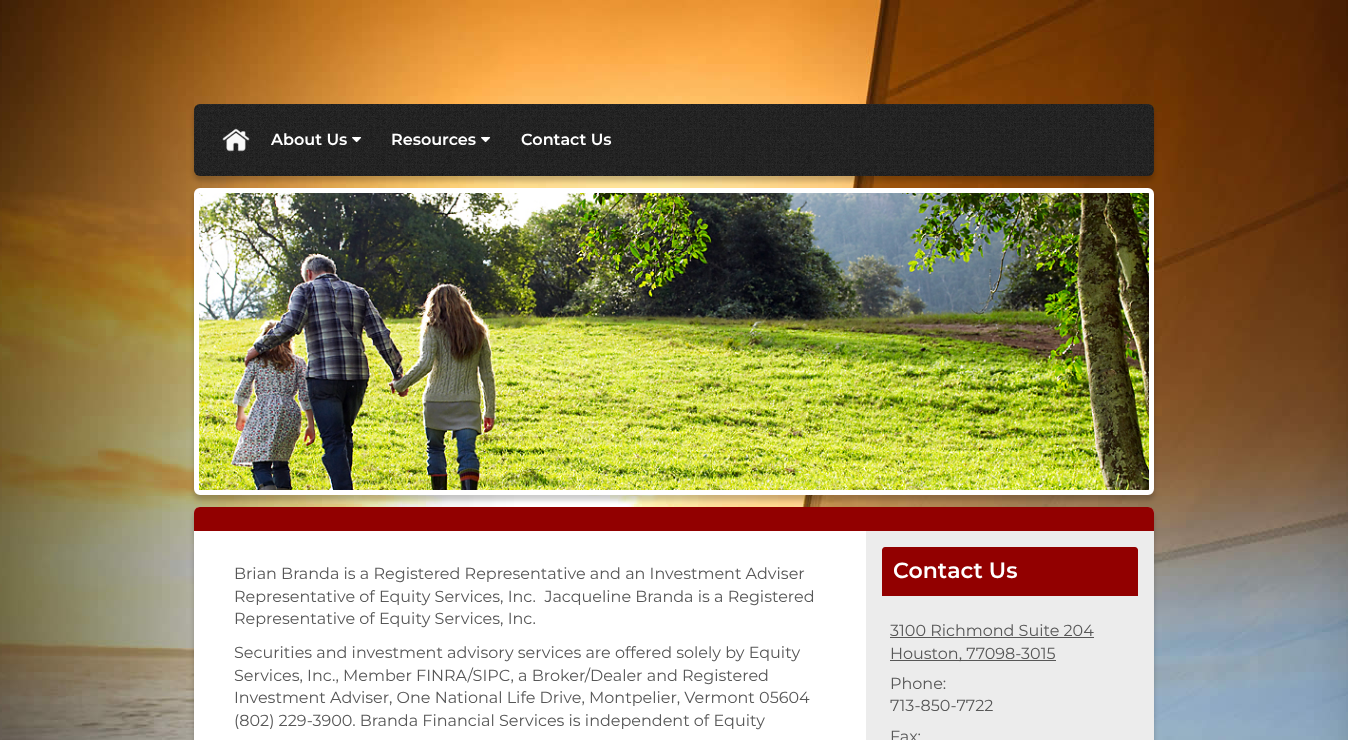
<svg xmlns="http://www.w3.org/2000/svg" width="1348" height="740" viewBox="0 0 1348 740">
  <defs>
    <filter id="blur1" x="-50%" y="-200%" width="200%" height="500%"><feGaussianBlur stdDeviation="2.5"/></filter>
  </defs>
  <rect width="100%" height="100%" fill="#ffffff"/>
  <image x="0" y="0" width="1348" height="740" href="img1.png"/>
  <rect x="194" y="109" width="960" height="72" rx="6" fill="#000000" fill-opacity="0.2" filter="url(#blur1)"/>
  <image x="194" y="104" width="960" height="72" href="img2.png"/>
  <image x="222" y="128" width="28" height="24" href="img3.png"/>
  <text x="271" y="145" font-family="Montserrat" font-size="16" font-weight="600" fill="#ffffff">About Us</text>
  <image x="352" y="137" width="10" height="6" href="img4.png"/>
  <text x="391" y="145" font-family="Montserrat" font-size="16" font-weight="600" fill="#ffffff">Resources</text>
  <image x="481" y="137" width="10" height="6" href="img5.png"/>
  <text x="521" y="145" font-family="Montserrat" font-size="16" font-weight="600" fill="#ffffff">Contact Us</text>
  <rect x="194" y="193" width="960" height="307" rx="6" fill="#000000" fill-opacity="0.2" filter="url(#blur1)"/>
  <rect x="196.5" y="190.5" width="955" height="302" rx="3.5" fill="none" stroke="#ffffff" stroke-width="5"/>
  <image x="199" y="193" width="950" height="297" href="img6.png"/>
  <rect x="194" y="512" width="960" height="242" rx="6" fill="#000000" fill-opacity="0.2" filter="url(#blur1)"/>
  <image x="194" y="507" width="960" height="233" href="img7.png"/>
  <path d="M200 507H1148C1151.5 507 1154 509.5 1154 513V531H194V513C194 509.5 196.5 507 200 507Z" fill="#920000"/>
  <text x="234" y="579" font-family="Montserrat" font-size="16" fill="#575757">Brian Branda is a Registered Representative and an Investment Adviser</text>
  <text x="234" y="602" font-family="Montserrat" font-size="16" fill="#575757" xml:space="preserve">Representative of Equity Services, Inc.  Jacqueline Branda is a Registered</text>
  <text x="234" y="624" font-family="Montserrat" font-size="16" fill="#575757">Representative of Equity Services, Inc.</text>
  <text x="234" y="658" font-family="Montserrat" font-size="16" fill="#575757">Securities and investment advisory services are offered solely by Equity</text>
  <text x="234" y="681" font-family="Montserrat" font-size="16" fill="#575757">Services, Inc., Member FINRA/SIPC, a Broker/Dealer and Registered</text>
  <text x="234" y="703" font-family="Montserrat" font-size="16" fill="#575757">Investment Adviser, One National Life Drive, Montpelier, Vermont 05604</text>
  <text x="234" y="726" font-family="Montserrat" font-size="16" fill="#575757">(802) 229-3900. Branda Financial Services is independent of Equity</text>
  <path d="M885 547H1135C1136.5 547 1138 548.5 1138 550V596H882V550C882 548.5 883.5 547 885 547Z" fill="#920000"/>
  <text x="893" y="578" font-family="Montserrat" font-size="22" font-weight="600" fill="#ffffff">Contact Us</text>
  <text x="890" y="636" font-family="Montserrat" font-size="16" fill="#575757">3100 Richmond Suite 204</text>
  <rect x="890" y="637" width="204" height="1" fill="#575757"/>
  <rect x="890" y="660" width="166" height="1" fill="#575757"/>
  <text x="890" y="659" font-family="Montserrat" font-size="16" fill="#575757">Houston, 77098-3015</text>
  <text x="890" y="689" font-family="Montserrat" font-size="16" fill="#575757">Phone:</text>
  <text x="890" y="711" font-family="Montserrat" font-size="16" fill="#575757">713-850-7722</text>
  <text x="890" y="742" font-family="Montserrat" font-size="16" fill="#575757">Fax:</text>
</svg>
